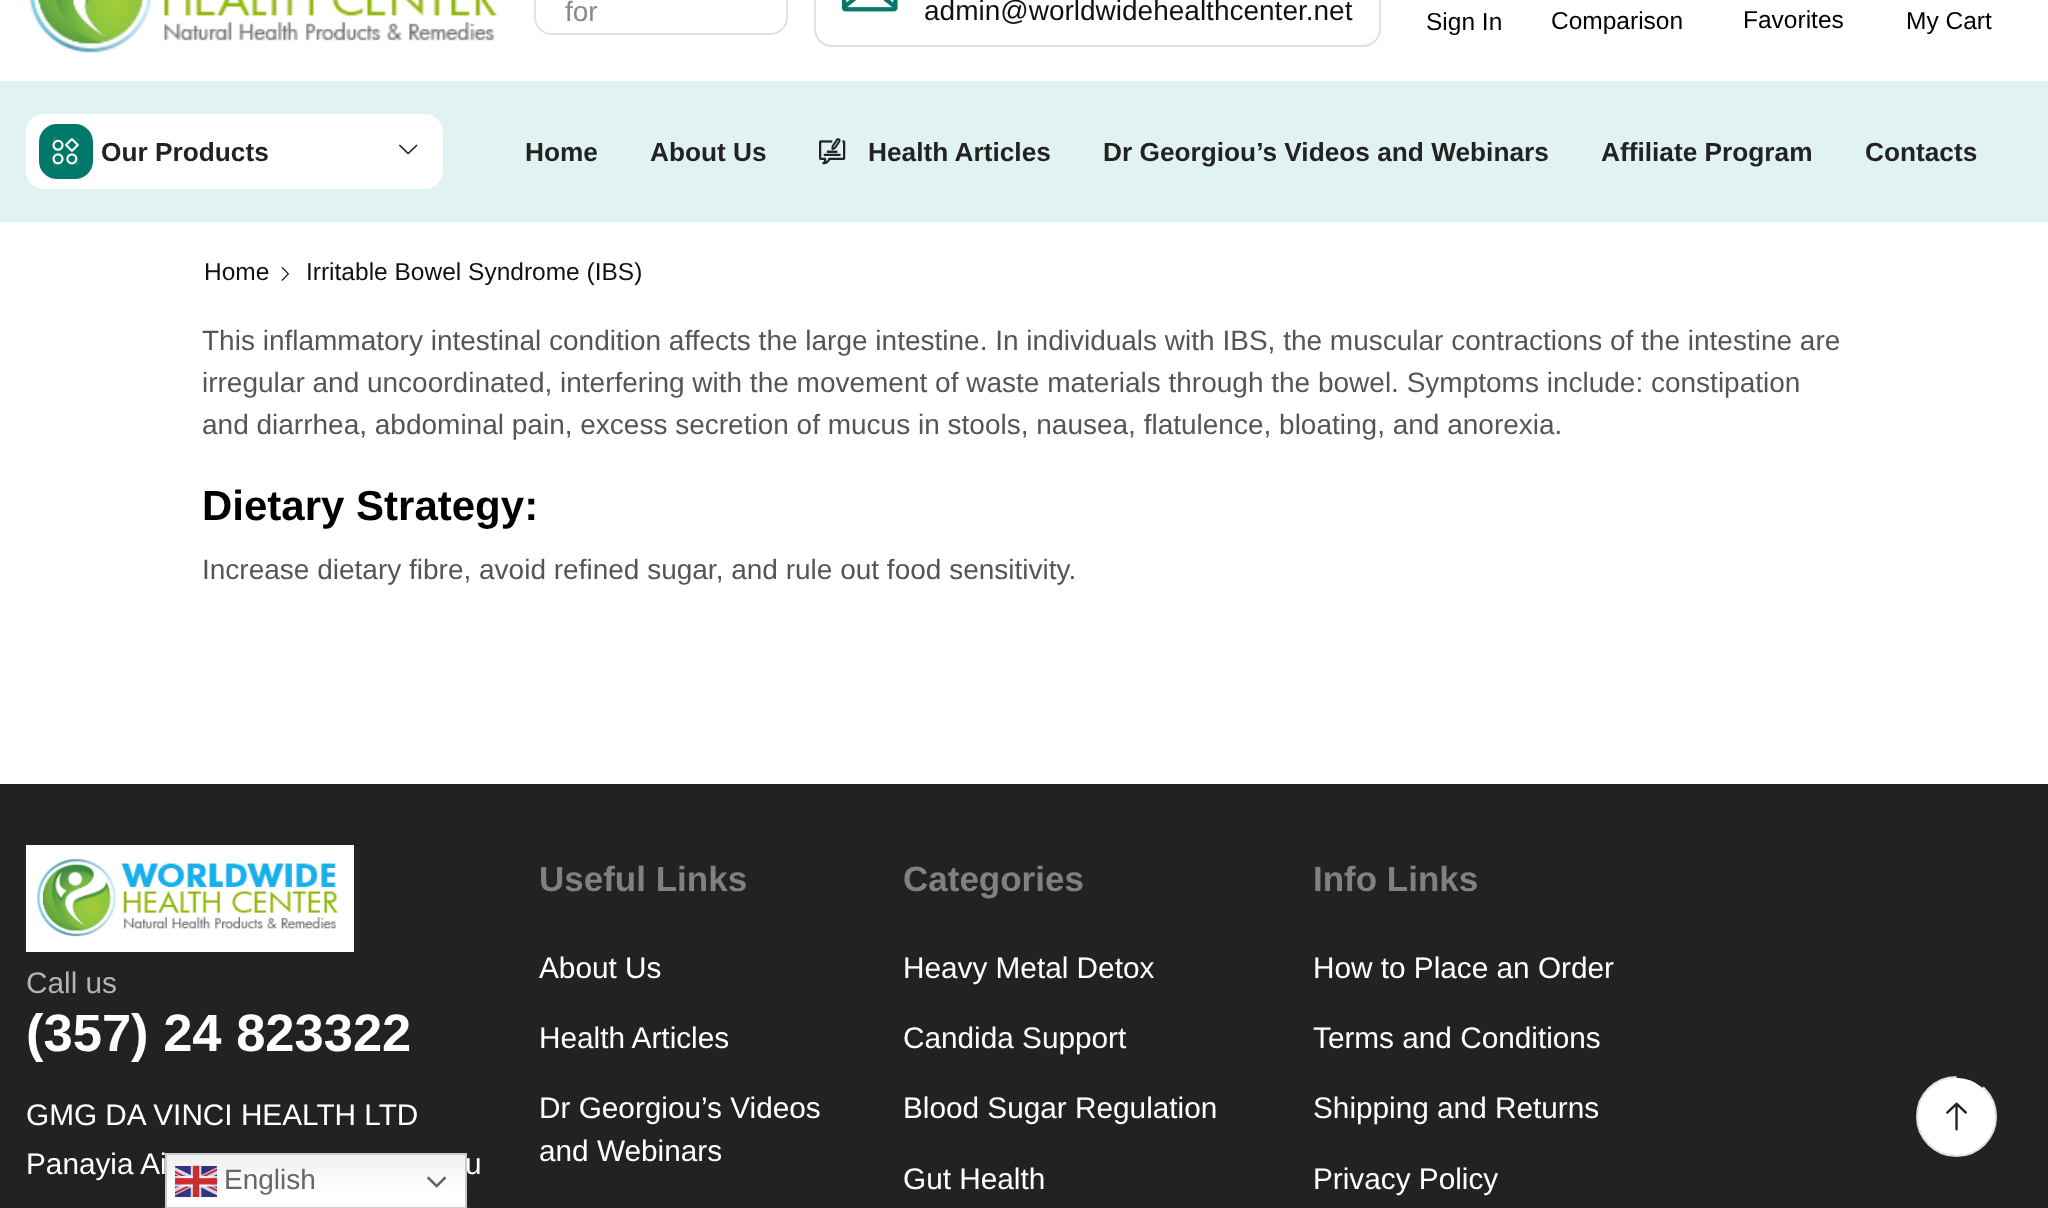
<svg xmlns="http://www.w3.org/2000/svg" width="2048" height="1208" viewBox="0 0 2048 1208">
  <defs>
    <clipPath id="clip1"><rect x="1915" y="1075" width="84" height="84"/></clipPath>
    <linearGradient id="g1" gradientUnits="userSpaceOnUse" x1="316" y1="1153" x2="316" y2="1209"><stop offset="0" stop-color="#efefef"/><stop offset="0.7" stop-color="#ffffff"/></linearGradient>
  </defs>
  <rect width="100%" height="100%" fill="#ffffff"/>
  <image x="29" y="0" width="469" height="53" href="img1.png"/>
  <rect x="535" y="-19" width="252" height="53" rx="17" fill="none" stroke="#e1e1e1" stroke-width="2"/>
  <rect x="536" y="-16" width="250" height="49" rx="16" fill="#ffffff"/>
  <text x="565" y="21" font-family="Liberation Sans" font-size="28" fill="#888888">for</text>
  <rect x="815" y="-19" width="565" height="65" rx="17" fill="none" stroke="#e1e1e1" stroke-width="2"/>
  <image x="841" y="0" width="57" height="12" href="img2.png"/>
  <text x="924" y="20" font-family="Liberation Sans" font-size="28" fill="#111111">admin@worldwidehealthcenter.net</text>
  <text x="1426" y="30" font-family="Liberation Sans" font-size="24.5" fill="#000000">Sign In</text>
  <text x="1551" y="29" font-family="Liberation Sans" font-size="24.5" fill="#000000">Comparison</text>
  <text x="1743" y="28" font-family="Liberation Sans" font-size="24.5" fill="#000000">Favorites</text>
  <text x="1906" y="29" font-family="Liberation Sans" font-size="24.5" fill="#000000">My Cart</text>
  <rect x="0" y="81" width="2048" height="141" fill="#e0f2f1"/>
  <rect x="26" y="114" width="417" height="75" rx="18" fill="#ffffff"/>
  <rect x="46" y="131" width="40" height="41" rx="11" fill="none" stroke="#00796b" stroke-width="14"/>
  <rect x="53" y="138" width="26" height="27" rx="4" fill="#00796b"/>
  <image x="52" y="138" width="27" height="27" href="img3.png"/>
  <text x="101" y="161" font-family="Liberation Sans" font-size="26.25" font-weight="bold" fill="#222222">Our Products</text>
  <image x="399" y="144" width="19" height="11" href="img4.png"/>
  <text x="525" y="161" font-family="Liberation Sans" font-size="26.25" font-weight="bold" fill="#222222">Home</text>
  <text x="650" y="161" font-family="Liberation Sans" font-size="26.25" font-weight="bold" fill="#222222">About Us</text>
  <image x="819" y="138" width="27" height="27" href="img5.png"/>
  <text x="868" y="161" font-family="Liberation Sans" font-size="26.25" font-weight="bold" fill="#222222">Health Articles</text>
  <text x="1103" y="161" font-family="Liberation Sans" font-size="26.25" font-weight="bold" fill="#222222">Dr Georgiou’s Videos and Webinars</text>
  <text x="1601" y="161" font-family="Liberation Sans" font-size="26.25" font-weight="bold" fill="#222222">Affiliate Program</text>
  <text x="1865" y="161" font-family="Liberation Sans" font-size="26.25" font-weight="bold" fill="#222222">Contacts</text>
  <text x="204" y="280" font-family="Liberation Sans" font-size="24.5" fill="#111111">Home</text>
  <image x="281" y="267" width="8" height="14" href="img6.png"/>
  <text x="306" y="280" font-family="Liberation Sans" font-size="24.5" fill="#111111">Irritable Bowel Syndrome (IBS)</text>
  <text x="202" y="350" font-family="Liberation Sans" font-size="28" fill="#555555">This inflammatory intestinal condition affects the large intestine. In individuals with IBS, the muscular contractions of the intestine are</text>
  <text x="202" y="392" font-family="Liberation Sans" font-size="28" fill="#555555">irregular and uncoordinated, interfering with the movement of waste materials through the bowel. Symptoms include: constipation</text>
  <text x="202" y="434" font-family="Liberation Sans" font-size="28" fill="#555555">and diarrhea, abdominal pain, excess secretion of mucus in stools, nausea, flatulence, bloating, and anorexia.</text>
  <text x="202" y="520" font-family="Liberation Sans" font-size="42" font-weight="bold" fill="#000000">Dietary Strategy:</text>
  <text x="202" y="579" font-family="Liberation Sans" font-size="28" fill="#555555">Increase dietary fibre, avoid refined sugar, and rule out food sensitivity.</text>
  <rect x="0" y="784" width="2048" height="424" fill="#222222"/>
  <circle cx="1956.5" cy="1116.5" r="39.5" fill="#ffffff" stroke="#e1e1e1" stroke-width="2"/>
  <g clip-path="url(#clip1)">
    <path d="M1956.5 1076C1967 1076 1976 1080 1983.5 1086.5" fill="none" stroke="#222222" stroke-width="3.3"/>
  </g>
  <image x="1946" y="1102" width="21" height="29" href="img7.png"/>
  <rect x="26" y="845" width="328" height="107" fill="#ffffff"/>
  <image x="37" y="859" width="301" height="78" href="img8.png"/>
  <text x="26" y="993" font-family="Liberation Sans" font-size="29.75" fill="#b3b3b3">Call us</text>
  <text x="26" y="1051" font-family="Liberation Sans" font-size="52.5" font-weight="bold" fill="#ffffff">(357) 24 823322</text>
  <text x="26" y="1125" font-family="Liberation Sans" font-size="29.75" fill="#ffffff">GMG DA VINCI HEALTH LTD</text>
  <text x="26" y="1174" font-family="Liberation Sans" font-size="29.75" fill="#ffffff">Panayia Ai</text>
  <text x="465" y="1174" font-family="Liberation Sans" font-size="29.75" fill="#ffffff">u</text>
  <text x="539" y="891" font-family="Liberation Sans" font-size="35" font-weight="bold" fill="#818181">Useful Links</text>
  <text x="539" y="978" font-family="Liberation Sans" font-size="29.75" fill="#ffffff">About Us</text>
  <text x="539" y="1048" font-family="Liberation Sans" font-size="29.75" fill="#ffffff">Health Articles</text>
  <text x="539" y="1118" font-family="Liberation Sans" font-size="29.75" fill="#ffffff">Dr Georgiou’s Videos</text>
  <text x="539" y="1161" font-family="Liberation Sans" font-size="29.75" fill="#ffffff">and Webinars</text>
  <text x="903" y="891" font-family="Liberation Sans" font-size="35" font-weight="bold" fill="#818181">Categories</text>
  <text x="903" y="978" font-family="Liberation Sans" font-size="29.75" fill="#ffffff">Heavy Metal Detox</text>
  <text x="903" y="1048" font-family="Liberation Sans" font-size="29.75" fill="#ffffff">Candida Support</text>
  <text x="903" y="1118" font-family="Liberation Sans" font-size="29.75" fill="#ffffff">Blood Sugar Regulation</text>
  <text x="903" y="1189" font-family="Liberation Sans" font-size="29.75" fill="#ffffff">Gut Health</text>
  <text x="1313" y="891" font-family="Liberation Sans" font-size="35" font-weight="bold" fill="#818181">Info Links</text>
  <text x="1313" y="978" font-family="Liberation Sans" font-size="29.75" fill="#ffffff">How to Place an Order</text>
  <text x="1313" y="1048" font-family="Liberation Sans" font-size="29.75" fill="#ffffff">Terms and Conditions</text>
  <text x="1313" y="1118" font-family="Liberation Sans" font-size="29.75" fill="#ffffff">Shipping and Returns</text>
  <text x="1313" y="1189" font-family="Liberation Sans" font-size="29.75" fill="#ffffff">Privacy Policy</text>
  <rect x="167" y="1155" width="298" height="52" fill="url(#g1)"/>
  <rect x="166" y="1154" width="300" height="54" fill="none" stroke="#cccccc" stroke-width="2"/>
  <image x="175" y="1165" width="42" height="32" href="img9.png"/>
  <text x="224" y="1189" font-family="Liberation Sans" font-size="28" fill="#666666">English</text>
  <image x="427" y="1176" width="19" height="12" href="img10.png"/>
</svg>
